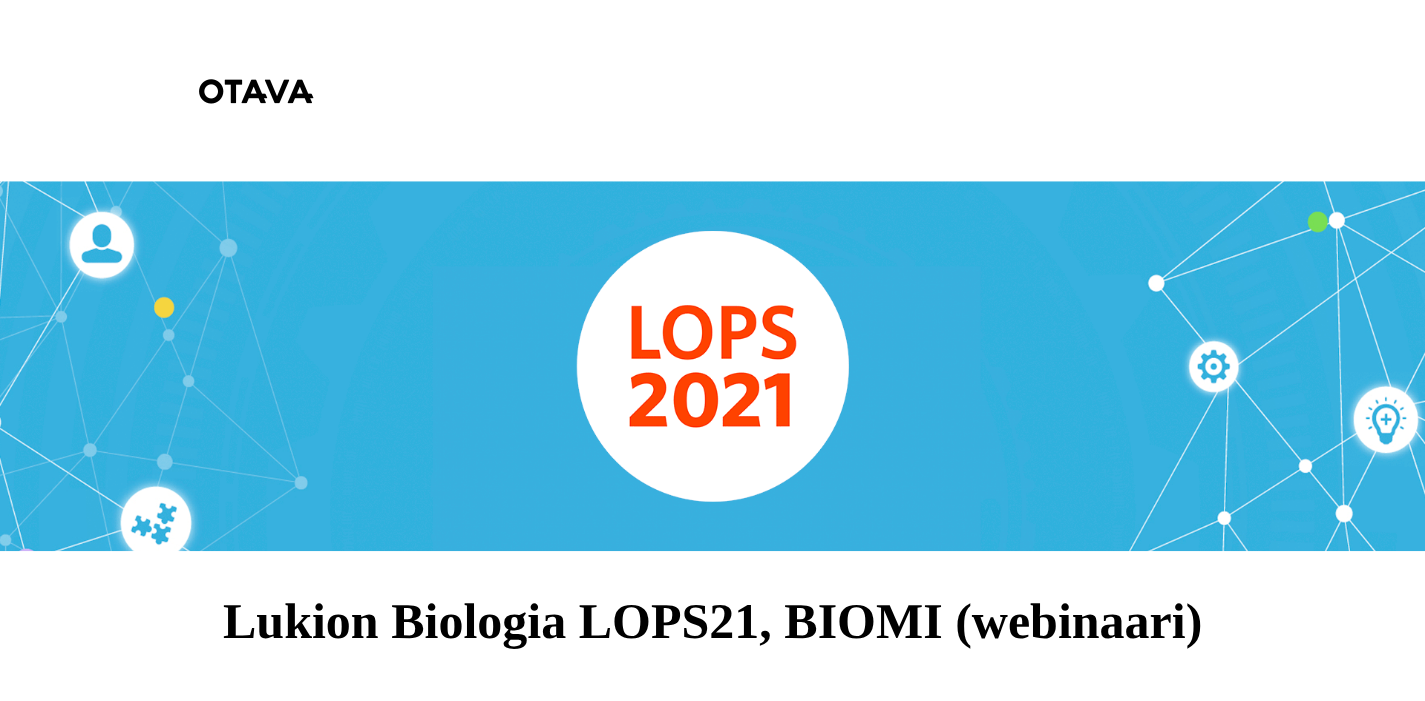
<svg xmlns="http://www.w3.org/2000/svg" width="1425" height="701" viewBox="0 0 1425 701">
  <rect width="100%" height="100%" fill="#ffffff"/>
  <image x="199" y="79" width="115" height="25" href="img1.png"/>
  <image x="0" y="181" width="1425" height="371" href="img2.png"/>
  <text x="223" y="638" font-family="Liberation Serif" font-size="50" font-weight="bold" fill="#000000">Lukion Biologia LOPS21, BIOMI (webinaari)</text>
</svg>
